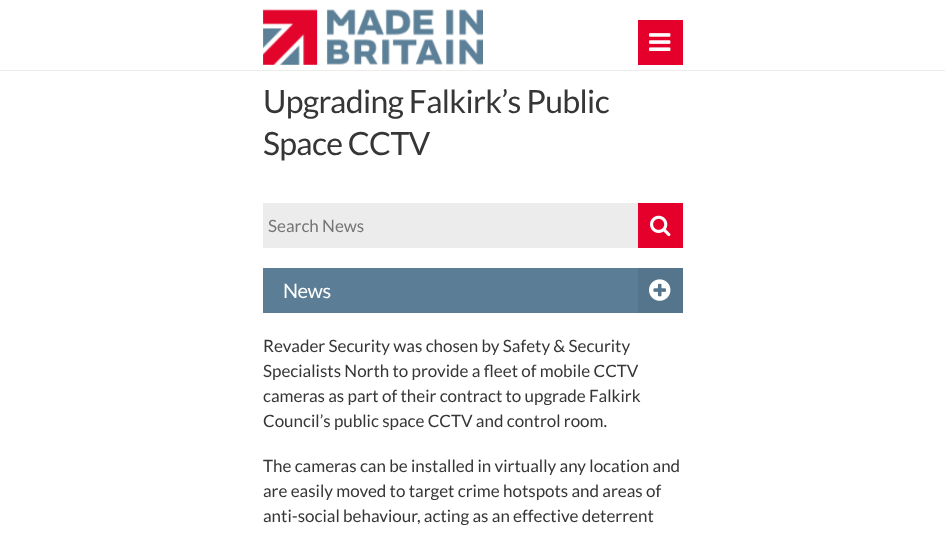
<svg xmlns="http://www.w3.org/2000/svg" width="945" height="541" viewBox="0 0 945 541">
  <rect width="100%" height="100%" fill="#ffffff"/>
  <rect x="0" y="70" width="945" height="1" fill="#ececec"/>
  <image x="263" y="9" width="220" height="56" href="img1.png"/>
  <rect x="638" y="20" width="45" height="45" fill="#e4002a"/>
  <image x="649" y="33" width="22" height="18" href="img2.png"/>
  <text x="263" y="113" font-family="Lato" font-size="32" letter-spacing="-0.65" fill="#363636">Upgrading Falkirk’s Public</text>
  <text x="263" y="155" font-family="Lato" font-size="32" letter-spacing="-0.65" fill="#363636">Space CCTV</text>
  <rect x="263" y="203" width="375" height="45" fill="#ececec"/>
  <text x="268" y="232" font-family="Lato" font-size="17" fill="#757575">Search News</text>
  <rect x="638" y="203" width="45" height="45" fill="#e4002a"/>
  <image x="650" y="215" width="21" height="22" href="img3.png"/>
  <rect x="263" y="268" width="375" height="45" fill="#5b7e96"/>
  <text x="283" y="298" font-family="Lato" font-size="20" letter-spacing="-0.5" fill="#ffffff">News</text>
  <rect x="638" y="268" width="45" height="45" fill="#54758b"/>
  <image x="649" y="279" width="22" height="22" href="img4.png"/>
  <text x="263" y="352" font-family="Lato" font-size="17" fill="#363636">Revader Security was chosen by Safety &amp; Security</text>
  <text x="263" y="377" font-family="Lato" font-size="17" fill="#363636">Specialists North to provide a fleet of mobile CCTV</text>
  <text x="263" y="402" font-family="Lato" font-size="17" fill="#363636">cameras as part of their contract to upgrade Falkirk</text>
  <text x="263" y="427" font-family="Lato" font-size="17" fill="#363636">Council’s public space CCTV and control room.</text>
  <text x="263" y="472" font-family="Lato" font-size="17" fill="#363636">The cameras can be installed in virtually any location and</text>
  <text x="263" y="497" font-family="Lato" font-size="17" fill="#363636">are easily moved to target crime hotspots and areas of</text>
  <text x="263" y="522" font-family="Lato" font-size="17" fill="#363636">anti-social behaviour, acting as an effective deterrent</text>
</svg>
